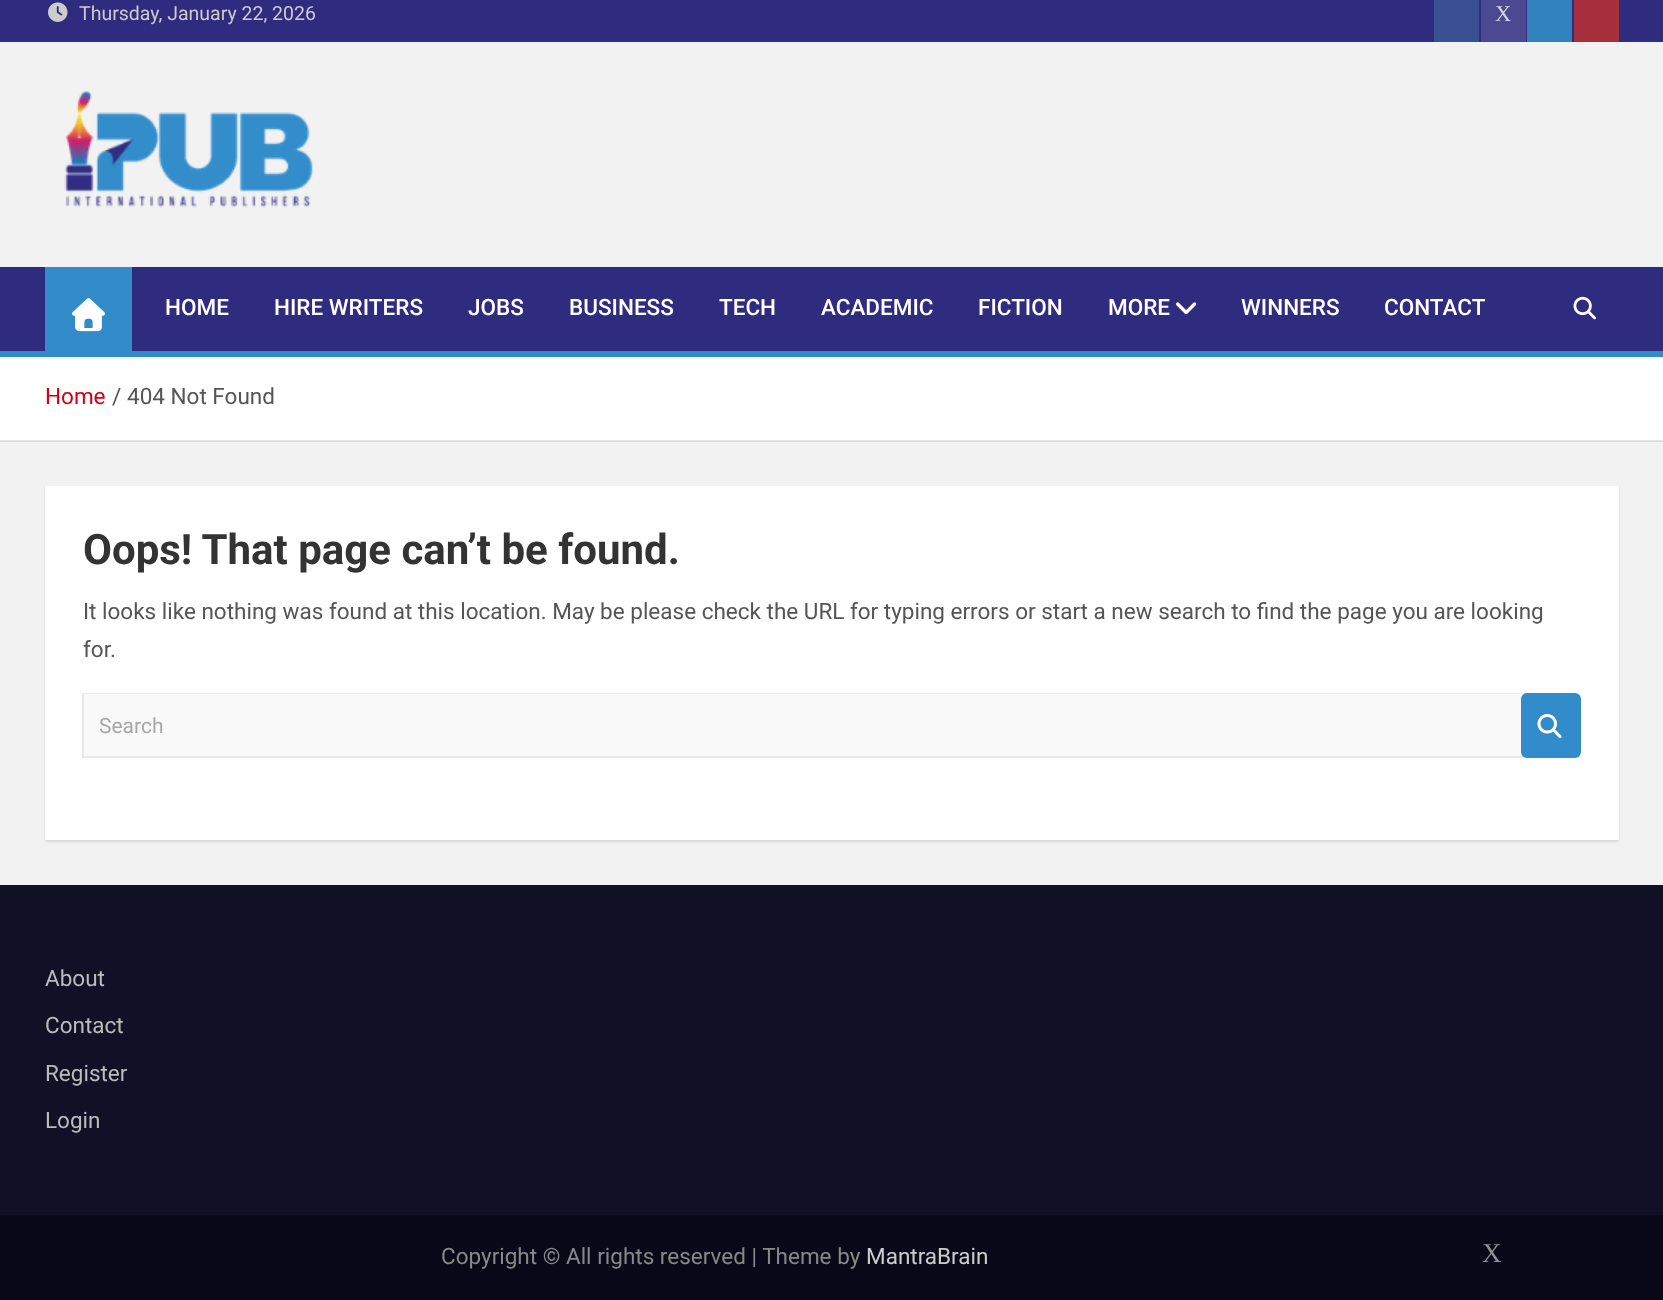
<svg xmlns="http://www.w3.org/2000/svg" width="1663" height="1300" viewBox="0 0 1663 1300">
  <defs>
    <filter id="blur1" x="-50%" y="-200%" width="200%" height="500%"><feGaussianBlur stdDeviation="1"/></filter>
  </defs>
  <rect width="100%" height="100%" fill="#f2f2f2"/>
  <rect x="0" y="441" width="1663" height="1" fill="#dadada"/>
  <rect x="0" y="0" width="1663" height="42" fill="#2f2c80"/>
  <image x="48" y="2" width="20" height="20" href="img1.png"/>
  <text x="79" y="20" font-family="Roboto" font-size="19.5" fill="#cccccc">Thursday, January 22, 2026</text>
  <rect x="1434" y="0" width="45" height="42" fill="#395093"/>
  <rect x="1481" y="0" width="45" height="42" fill="#4b4991"/>
  <text x="1495" y="21" font-family="Liberation Serif" font-size="22.5" fill="#d5d5e6">X</text>
  <rect x="1527" y="0" width="45" height="42" fill="#3283bd"/>
  <rect x="1574" y="0" width="45" height="42" fill="#a62f3c"/>
  <image x="64" y="91" width="250" height="117" href="img2.png"/>
  <rect x="0" y="267" width="1663" height="84" fill="#2f2c80"/>
  <rect x="0" y="351" width="1663" height="6" fill="#338cca"/>
  <rect x="45" y="267" width="87" height="84" fill="#338cca"/>
  <image x="72" y="298" width="33" height="34" href="img3.png"/>
  <text x="165" y="315" font-family="Roboto" font-size="22.5" font-weight="500" fill="#ffffff">HOME</text>
  <text x="274" y="315" font-family="Roboto" font-size="22.5" font-weight="500" fill="#ffffff">HIRE WRITERS</text>
  <text x="468" y="315" font-family="Roboto" font-size="22.5" font-weight="500" fill="#ffffff">JOBS</text>
  <text x="569" y="315" font-family="Roboto" font-size="22.5" font-weight="500" fill="#ffffff">BUSINESS</text>
  <text x="719" y="315" font-family="Roboto" font-size="22.5" font-weight="500" fill="#ffffff">TECH</text>
  <text x="821" y="315" font-family="Roboto" font-size="22.5" font-weight="500" fill="#ffffff">ACADEMIC</text>
  <text x="978" y="315" font-family="Roboto" font-size="22.5" font-weight="500" fill="#ffffff">FICTION</text>
  <text x="1108" y="315" font-family="Roboto" font-size="22.5" font-weight="500" fill="#ffffff">MORE</text>
  <image x="1176" y="302" width="21" height="13" href="img4.png"/>
  <text x="1241" y="315" font-family="Roboto" font-size="22.5" font-weight="500" fill="#ffffff">WINNERS</text>
  <text x="1384" y="315" font-family="Roboto" font-size="22.5" font-weight="500" fill="#ffffff">CONTACT</text>
  <image x="1573" y="296" width="23" height="24" href="img5.png"/>
  <rect x="0" y="357" width="1663" height="83" fill="#ffffff"/>
  <rect x="0" y="440" width="1663" height="1" fill="#e6e6e6"/>
  <text x="45" y="404" font-family="Roboto" font-size="22.5" fill="#d10014">Home</text>
  <text x="112" y="404" font-family="Roboto" font-size="22.5" fill="#555555">/</text>
  <text x="127" y="404" font-family="Roboto" font-size="22.5" fill="#555555">404 Not Found</text>
  <rect x="45" y="488" width="1574" height="354" fill="#000000" fill-opacity="0.1" filter="url(#blur1)"/>
  <rect x="45" y="486" width="1574" height="354" fill="#ffffff"/>
  <text x="83" y="564" font-family="Roboto" font-size="42" font-weight="bold" fill="#333333">Oops! That page can’t be found.</text>
  <text x="83" y="619" font-family="Roboto" font-size="22.5" fill="#555555">It looks like nothing was found at this location. May be please check the URL for typing errors or start a new search to find the page you are looking</text>
  <text x="83" y="657" font-family="Roboto" font-size="22.5" fill="#555555">for.</text>
  <rect x="84" y="695" width="1439" height="61" fill="#f9f9f9"/>
  <path d="M82 693H1522V694H84Z" fill="#e8e8e8"/>
  <path d="M1522 758H82L84 756H1522Z" fill="#e8e8e8"/>
  <path d="M82 758V693L84 694V756Z" fill="#000000" fill-opacity="0.09"/>
  <text x="99" y="733" font-family="Roboto" font-size="21" fill="#a7a7a7">Search</text>
  <rect x="1521" y="693" width="60" height="65" rx="6" fill="#338cca"/>
  <image x="1537" y="714" width="25" height="24" href="img6.png"/>
  <rect x="0" y="885" width="1663" height="330" fill="#121026"/>
  <text x="45" y="986" font-family="Roboto" font-size="22.5" fill="#bbbbbb">About</text>
  <text x="45" y="1033" font-family="Roboto" font-size="22.5" fill="#bbbbbb">Contact</text>
  <text x="45" y="1081" font-family="Roboto" font-size="22.5" fill="#bbbbbb">Register</text>
  <text x="45" y="1128" font-family="Roboto" font-size="22.5" fill="#bbbbbb">Login</text>
  <rect x="0" y="1215" width="1663" height="85" fill="#090818"/>
  <text x="441" y="1264" font-family="Roboto" font-size="22.5" fill="#888888">Copyright © All rights reserved | Theme by</text>
  <text x="866" y="1264" font-family="Roboto" font-size="22.5" fill="#cccccc">MantraBrain</text>
  <text x="1482" y="1262" font-family="Liberation Serif" font-size="27" fill="#929196">X</text>
</svg>
